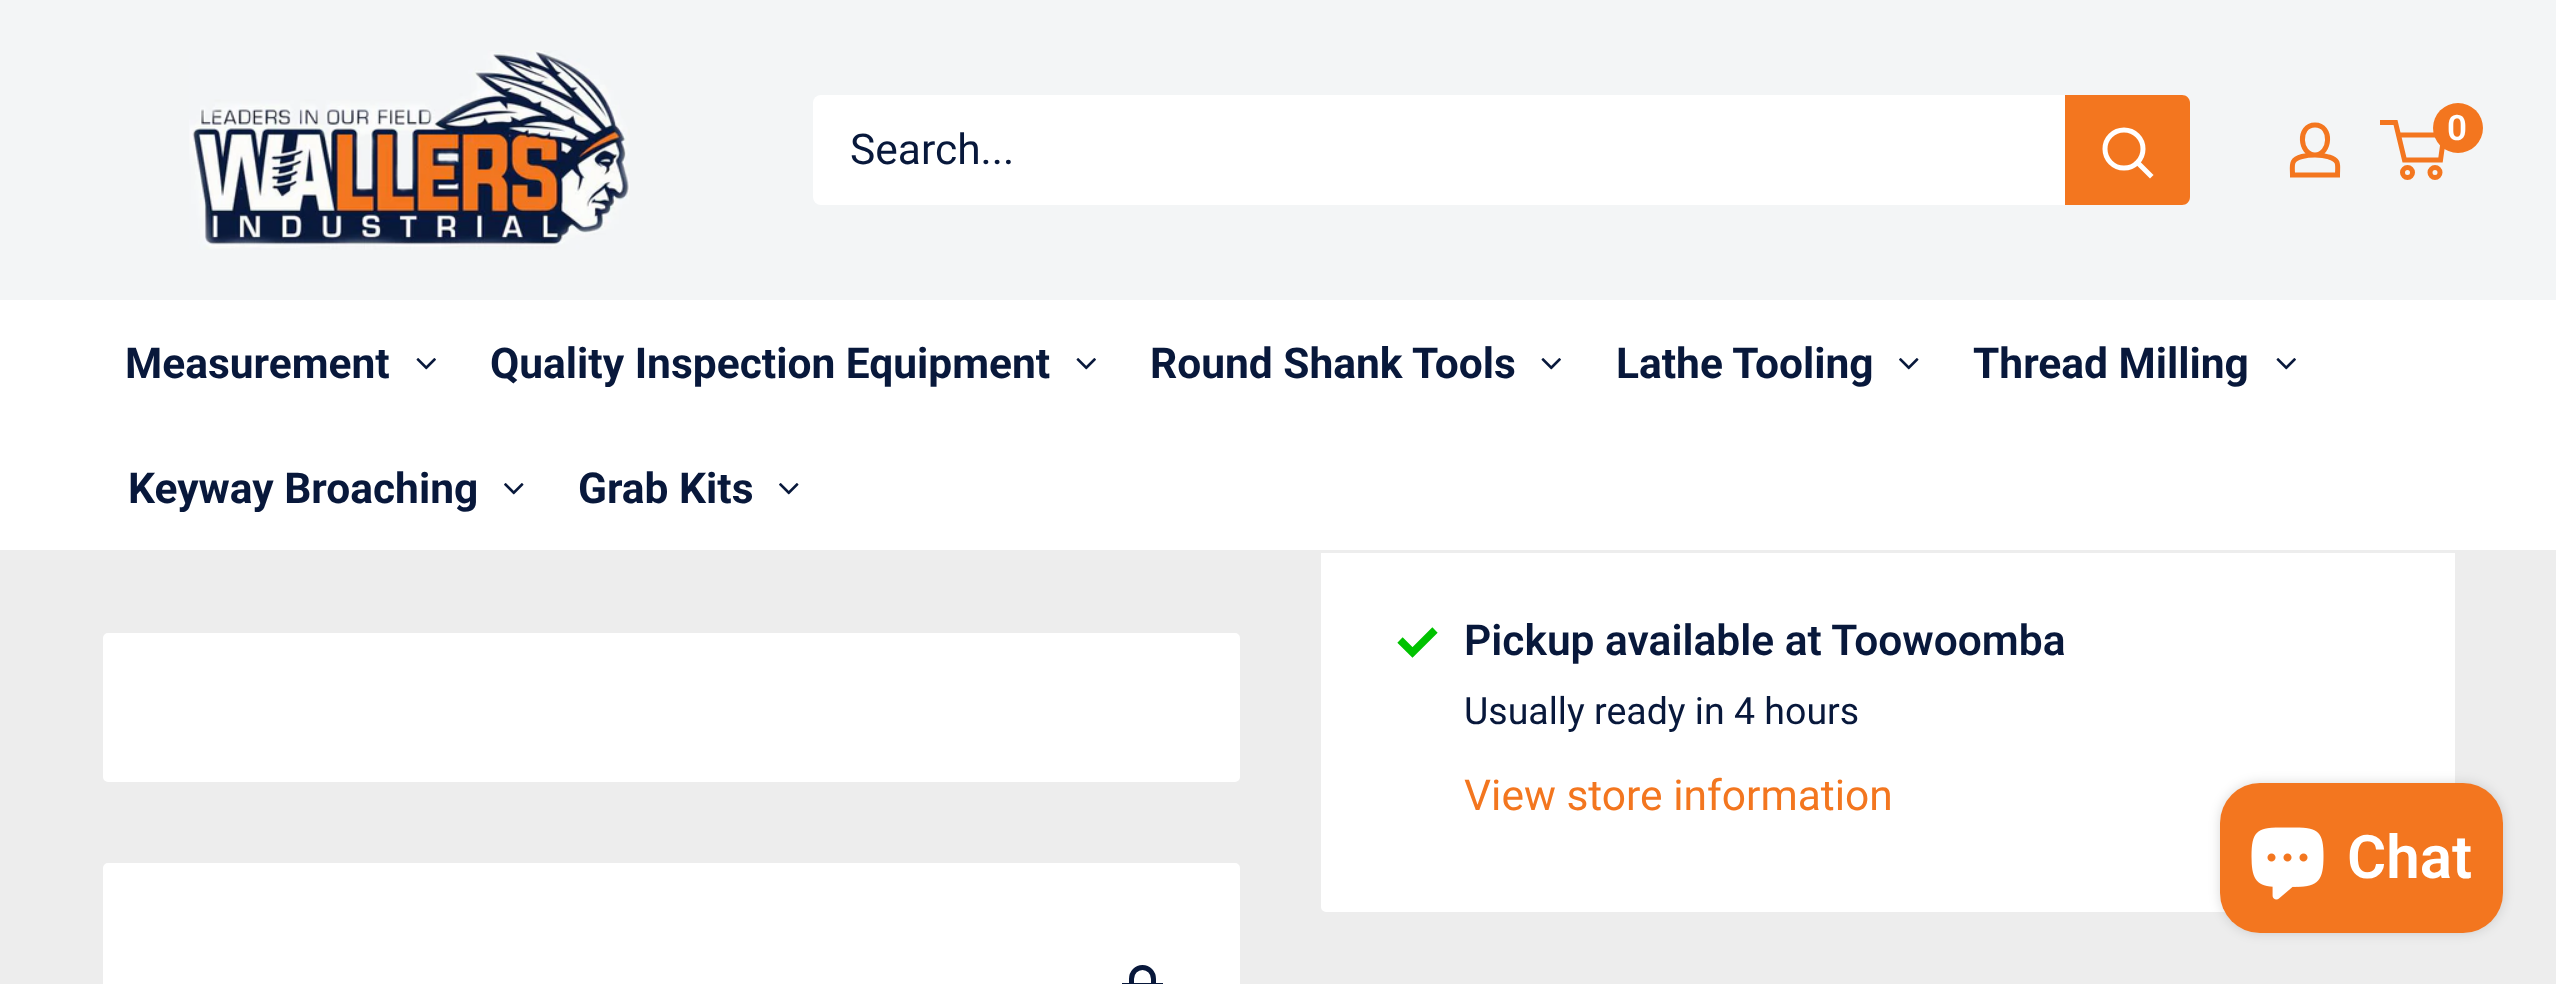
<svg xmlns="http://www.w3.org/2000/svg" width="2556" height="984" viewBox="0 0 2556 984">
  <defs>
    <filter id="blur1" x="-50%" y="-200%" width="200%" height="500%"><feGaussianBlur stdDeviation="6"/></filter>
  </defs>
  <rect width="100%" height="100%" fill="#ededed"/>
  <rect x="1319.5" y="-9.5" width="1137" height="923" rx="6.5" fill="#ffffff" stroke="#ededed" stroke-width="3"/>
  <rect x="0" y="0" width="2556" height="300" fill="#f3f5f6"/>
  <image x="189" y="50" width="441" height="200" href="img1.png"/>
  <path d="M2315 155C2319.5 155 2324.5 155.5 2329 157C2340 160 2337.5 165.5 2337.5 175H2292.5C2292.5 165 2290 159.5 2302 156.5C2306 155.5 2310.5 155 2315 155ZM2315 155C2299.5 155 2297 125 2315 125C2333 125 2330.5 155 2315 155Z" fill="none" stroke="#f3761f" stroke-width="5"/>
  <circle cx="2407.5" cy="172.5" r="5" fill="none" stroke="#f3761f" stroke-width="5"/>
  <circle cx="2435" cy="172.5" r="5" fill="none" stroke="#f3761f" stroke-width="5"/>
  <path d="M2398.5 135H2444L2440.5 160H2404.5L2395.5 122.5H2380" fill="none" stroke="#f3761f" stroke-width="5"/>
  <circle cx="2458" cy="128" r="25" fill="#f3761f"/>
  <text x="2447" y="140" font-family="Roboto" font-size="35" font-weight="600" fill="#ffffff">0</text>
  <rect x="813" y="95" width="1377" height="110" rx="8" fill="#ffffff"/>
  <text x="850" y="164" font-family="Roboto" font-size="42.5" fill="#08183b">Search...</text>
  <path d="M2065 95H2182C2186.5 95 2190 98.5 2190 103V197C2190 201.5 2186.5 205 2182 205H2065Z" fill="#f3761f"/>
  <path d="M2150 175L2137.5 162.5" fill="none" stroke="#ffffff" stroke-width="5" stroke-linecap="square"/>
  <circle cx="2124" cy="149" r="19" fill="none" stroke="#ffffff" stroke-width="5"/>
  <rect x="0" y="300" width="2556" height="250" fill="#ffffff"/>
  <rect x="1321" y="550" width="1134" height="3" fill="#ededed"/>
  <text x="125" y="378" font-family="Roboto" font-size="42.5" font-weight="bold" fill="#08183b">Measurement</text>
  <image x="416" y="358" width="20" height="12" href="img2.png"/>
  <text x="490" y="378" font-family="Roboto" font-size="42.5" font-weight="bold" fill="#08183b">Quality Inspection Equipment</text>
  <image x="1076" y="358" width="20" height="12" href="img2.png"/>
  <text x="1150" y="378" font-family="Roboto" font-size="42.5" font-weight="bold" fill="#08183b">Round Shank Tools</text>
  <image x="1541" y="358" width="20" height="12" href="img2.png"/>
  <text x="1616" y="378" font-family="Roboto" font-size="42.5" font-weight="bold" fill="#08183b">Lathe Tooling</text>
  <image x="1899" y="358" width="20" height="12" href="img3.png"/>
  <text x="1973" y="378" font-family="Roboto" font-size="42.5" font-weight="bold" fill="#08183b">Thread Milling</text>
  <image x="2276" y="358" width="20" height="12" href="img2.png"/>
  <text x="128" y="503" font-family="Roboto" font-size="42.5" font-weight="bold" fill="#08183b">Keyway Broaching</text>
  <image x="504" y="483" width="20" height="12" href="img3.png"/>
  <text x="578" y="503" font-family="Roboto" font-size="42.5" font-weight="bold" fill="#08183b">Grab Kits</text>
  <image x="779" y="483" width="20" height="12" href="img3.png"/>
  <rect x="101.5" y="631.5" width="1140" height="152" rx="6.5" fill="#ffffff" stroke="#ededed" stroke-width="3"/>
  <path d="M1400 640L1412.5 652.5L1435 630" fill="none" stroke="#00c200" stroke-width="7.5"/>
  <text x="1464" y="655" font-family="Roboto" font-size="42.5" font-weight="600" fill="#08183b">Pickup available at Toowoomba</text>
  <text x="1464" y="724" font-family="Roboto" font-size="37.5" fill="#08183b">Usually ready in 4 hours</text>
  <text x="1464" y="810" font-family="Roboto" font-size="42.5" fill="#f3761f">View store information</text>
  <rect x="101.5" y="861.5" width="1140" height="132" rx="6.5" fill="#ffffff" stroke="#ededed" stroke-width="3"/>
  <path d="M1142.5 967.5C1136.5 967.5 1131.5 972.5 1131.5 979V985.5H1153.5V979C1153.5 972.5 1148.5 967.5 1142.5 967.5ZM1124.5 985.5H1160.5V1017.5H1124.5Z" fill="none" stroke="#08183b" stroke-width="5" stroke-linecap="square"/>
  <rect x="2220" y="783" width="283" height="150" rx="40" fill="#000000" fill-opacity="0.15" filter="url(#blur1)"/>
  <rect x="2220" y="783" width="283" height="150" rx="40" fill="#f3761f"/>
  <image x="2251" y="827" width="73" height="73" href="img4.png"/>
  <text x="2347" y="878" font-family="Roboto" font-size="60" font-weight="600" fill="#ffffff">Chat</text>
</svg>
